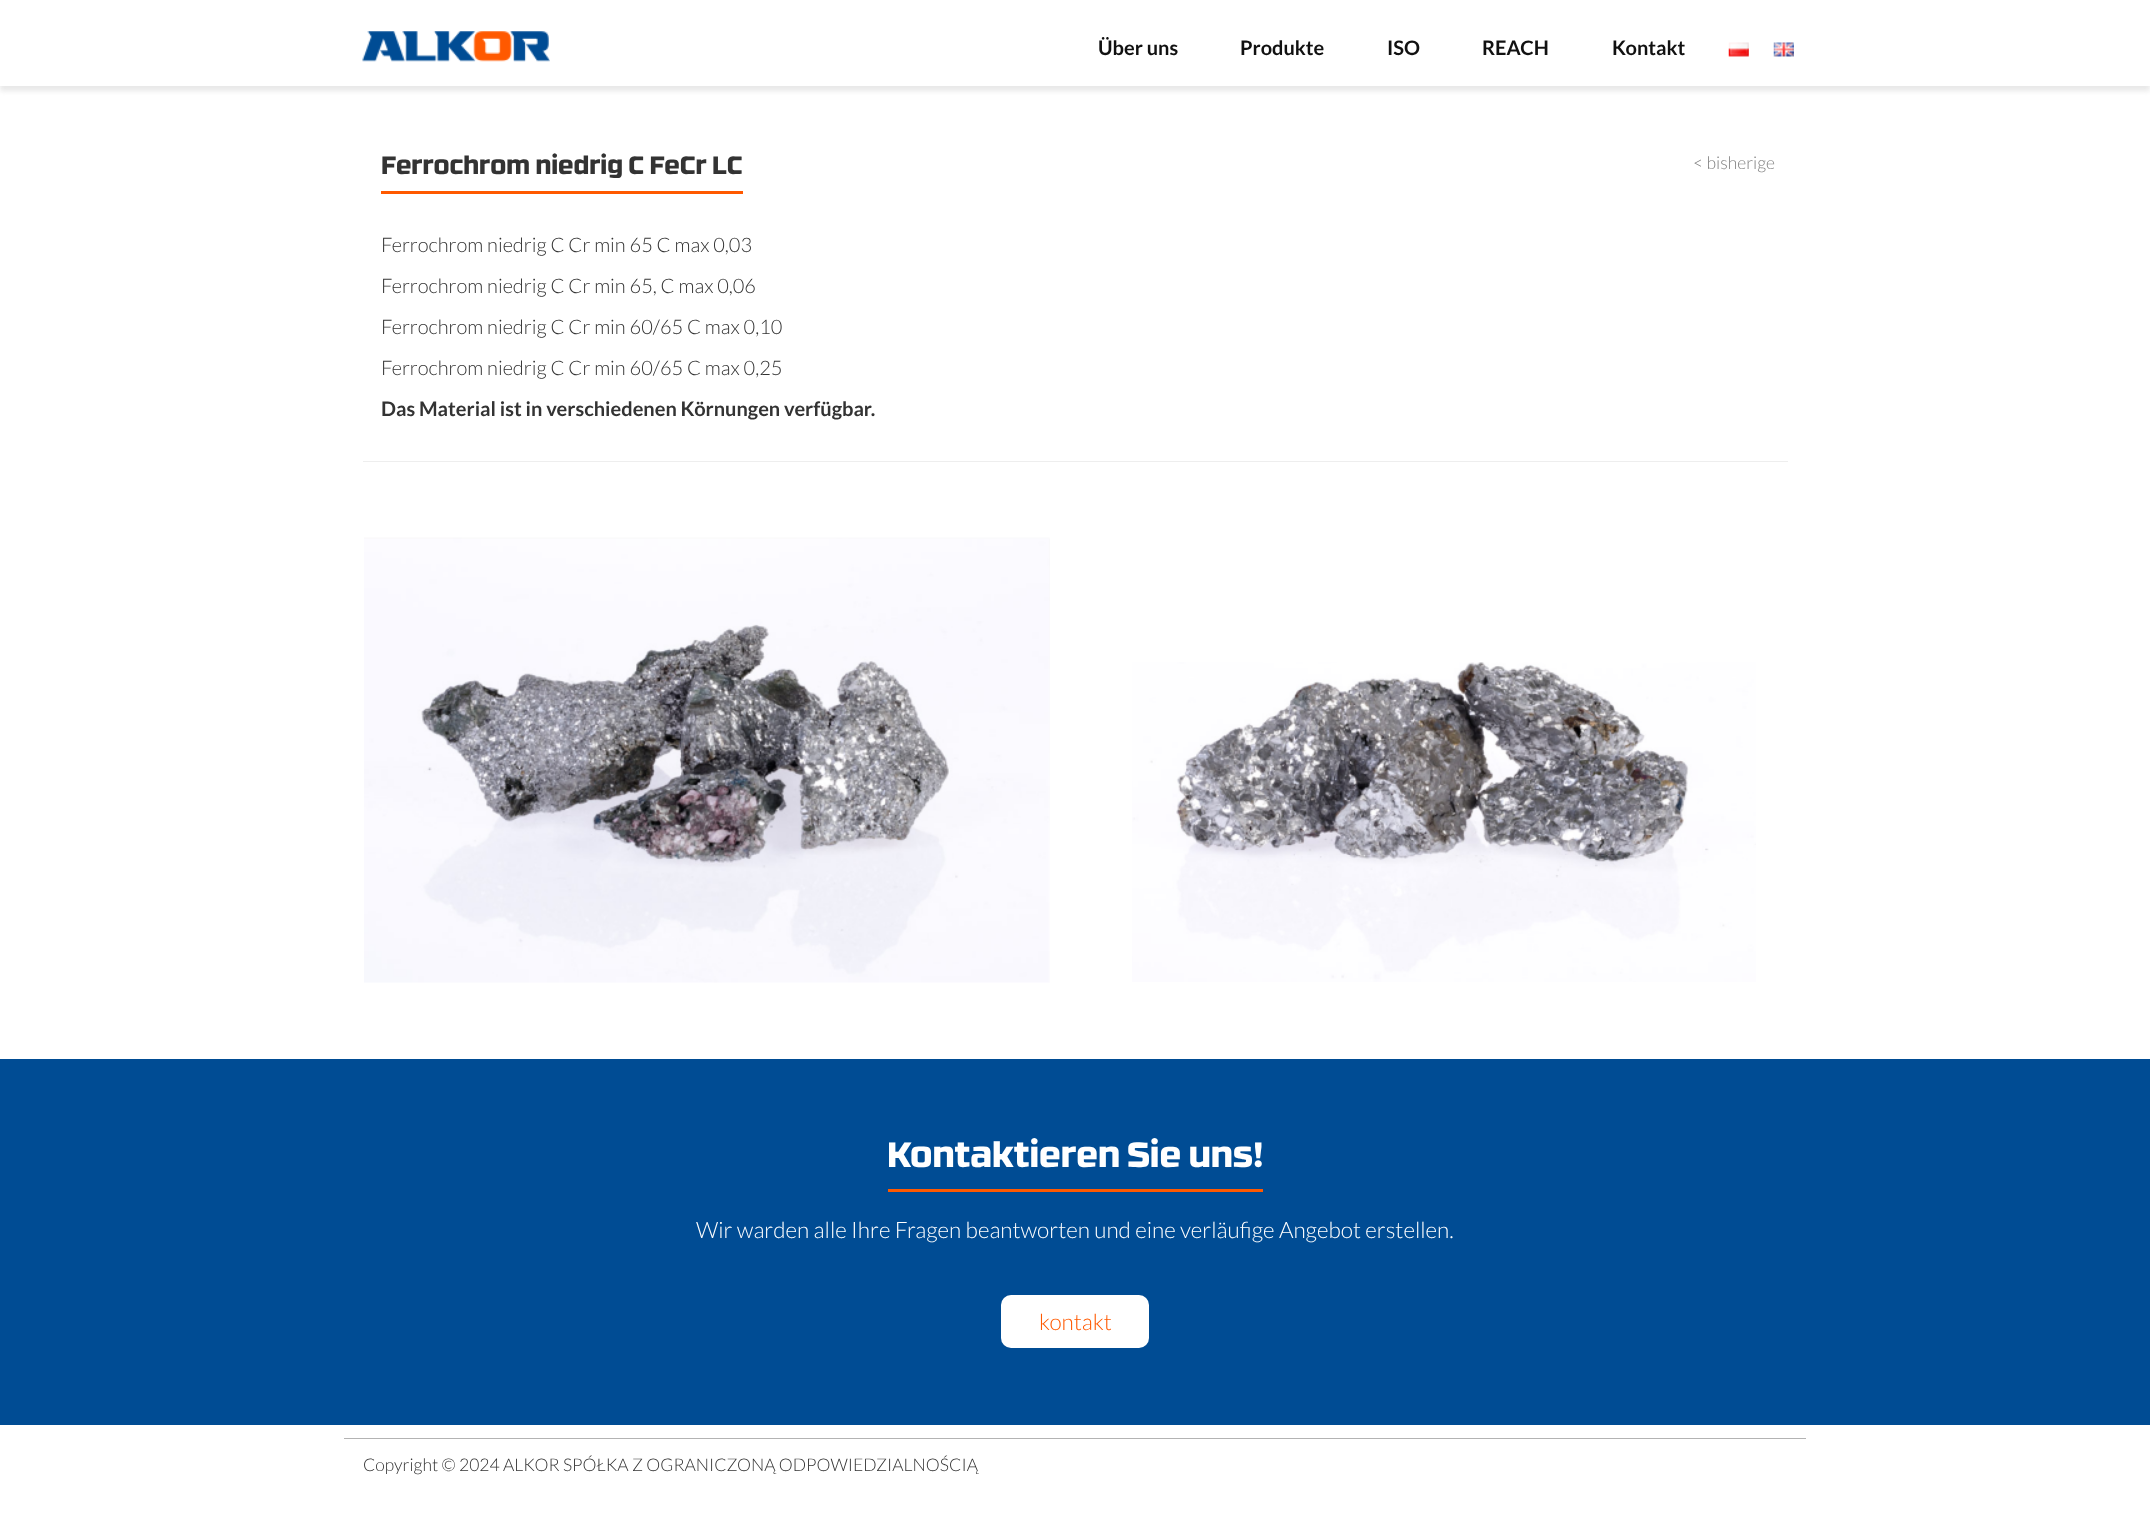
<svg xmlns="http://www.w3.org/2000/svg" width="2150" height="1526" viewBox="0 0 2150 1526">
  <defs>
    <clipPath id="clip1"><rect x="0" y="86" width="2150" height="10"/></clipPath>
    <filter id="blur1" x="-50%" y="-200%" width="200%" height="500%"><feGaussianBlur stdDeviation="2.5"/></filter>
  </defs>
  <rect width="100%" height="100%" fill="#ffffff"/>
  <g clip-path="url(#clip1)">
    <rect x="0" y="5" width="2150" height="86" fill="#e8e8e8" filter="url(#blur1)"/>
  </g>
  <image x="362" y="31" width="188" height="31" href="img1.png"/>
  <text x="1098" y="55" font-family="Lato" font-size="20" font-weight="bold" fill="#111111">Über uns</text>
  <text x="1240" y="55" font-family="Lato" font-size="20" font-weight="bold" fill="#111111">Produkte</text>
  <text x="1387" y="55" font-family="Lato" font-size="20" font-weight="bold" fill="#111111">ISO</text>
  <text x="1482" y="55" font-family="Lato" font-size="20" font-weight="bold" fill="#111111">REACH</text>
  <text x="1612" y="55" font-family="Lato" font-size="20" font-weight="bold" fill="#111111">Kontakt</text>
  <image x="1728" y="42" width="21" height="15" href="img2.png"/>
  <image x="1773" y="42" width="21" height="15" href="img3.png"/>
  <rect x="381" y="191" width="362" height="3" fill="#ff5900"/>
  <text x="381" y="174" font-family="'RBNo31'" font-size="25" font-weight="800" fill="#333333">Ferrochrom niedrig C FeCr LC</text>
  <text x="381" y="252" font-family="Lato" font-size="20" font-weight="300" fill="#333333">Ferrochrom niedrig C Cr min 65 C max 0,03</text>
  <text x="381" y="293" font-family="Lato" font-size="20" font-weight="300" fill="#333333">Ferrochrom niedrig C Cr min 65, C max 0,06</text>
  <text x="381" y="334" font-family="Lato" font-size="20" font-weight="300" fill="#333333">Ferrochrom niedrig C Cr min 60/65 C max 0,10</text>
  <text x="381" y="375" font-family="Lato" font-size="20" font-weight="300" fill="#333333">Ferrochrom niedrig C Cr min 60/65 C max 0,25</text>
  <text x="381" y="416" font-family="Lato" font-size="20" font-weight="bold" fill="#333333">Das Material ist in verschiedenen Körnungen verfügbar.</text>
  <text x="1693" y="169" font-family="Lato" font-size="17.5" font-weight="300" fill="#808080">&lt; bisherige</text>
  <rect x="363" y="461" width="1425" height="1" fill="#eeeeee"/>
  <image x="364" y="537" width="686" height="446" href="img4.png"/>
  <image x="1132" y="662" width="624" height="320" href="img5.png"/>
  <rect x="0" y="1059" width="2150" height="366" fill="#004c94"/>
  <rect x="888" y="1189" width="375" height="3" fill="#ff5900"/>
  <text x="887" y="1167" font-family="'RBNo31'" font-size="35" font-weight="800" fill="#ffffff">Kontaktieren Sie uns!</text>
  <text x="696" y="1238" font-family="Lato" font-size="22.5" font-weight="300" fill="#ffffff">Wir warden alle Ihre Fragen beantworten und eine verläufige Angebot erstellen.</text>
  <rect x="1001" y="1295" width="148" height="53" rx="10" fill="#ffffff"/>
  <text x="1039" y="1330" font-family="Lato" font-size="22.5" font-weight="300" fill="#ff5900">kontakt</text>
  <rect x="344" y="1438" width="1462" height="1" fill="#b3b3b3"/>
  <text x="363" y="1471" font-family="Lato" font-size="17.5" font-weight="300" fill="#333333">Copyright © 2024 ALKOR SPÓŁKA Z OGRANICZONĄ ODPOWIEDZIALNOŚCIĄ</text>
</svg>
